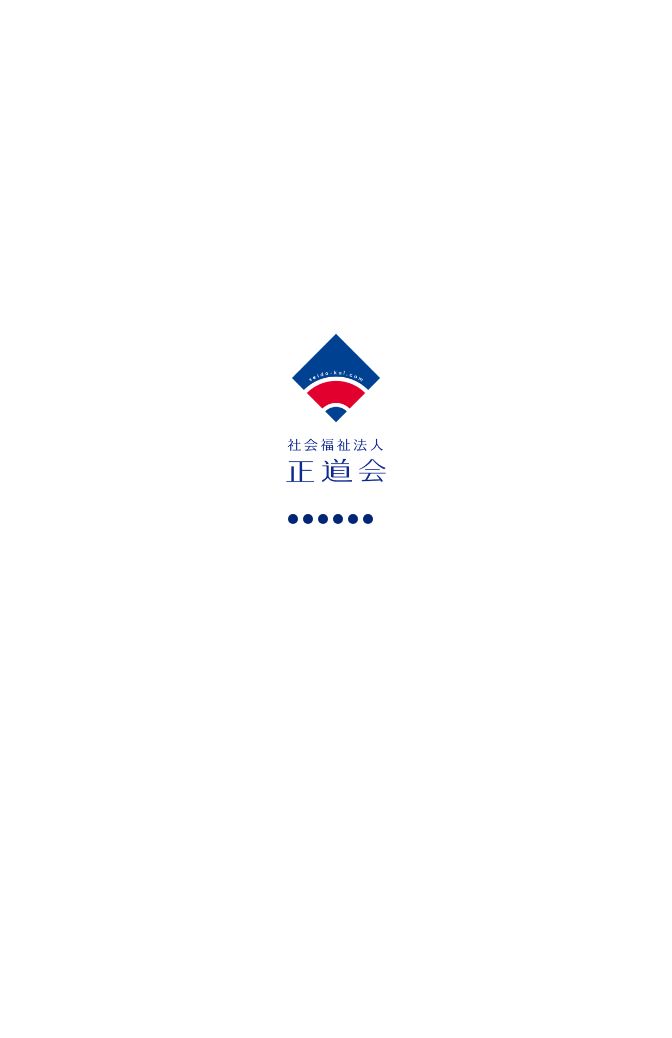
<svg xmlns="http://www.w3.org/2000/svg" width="672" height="1038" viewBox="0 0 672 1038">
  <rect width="100%" height="100%" fill="#ffffff"/>
  <image x="286" y="333" width="100" height="150" href="img1.png"/>
  <circle cx="293" cy="519" r="5" fill="#002675"/>
  <circle cx="308" cy="519" r="5" fill="#002675"/>
  <circle cx="323" cy="519" r="5" fill="#002675"/>
  <circle cx="338" cy="519" r="5" fill="#002675"/>
  <circle cx="353" cy="519" r="5" fill="#002675"/>
  <circle cx="368" cy="519" r="5" fill="#002675"/>
</svg>
